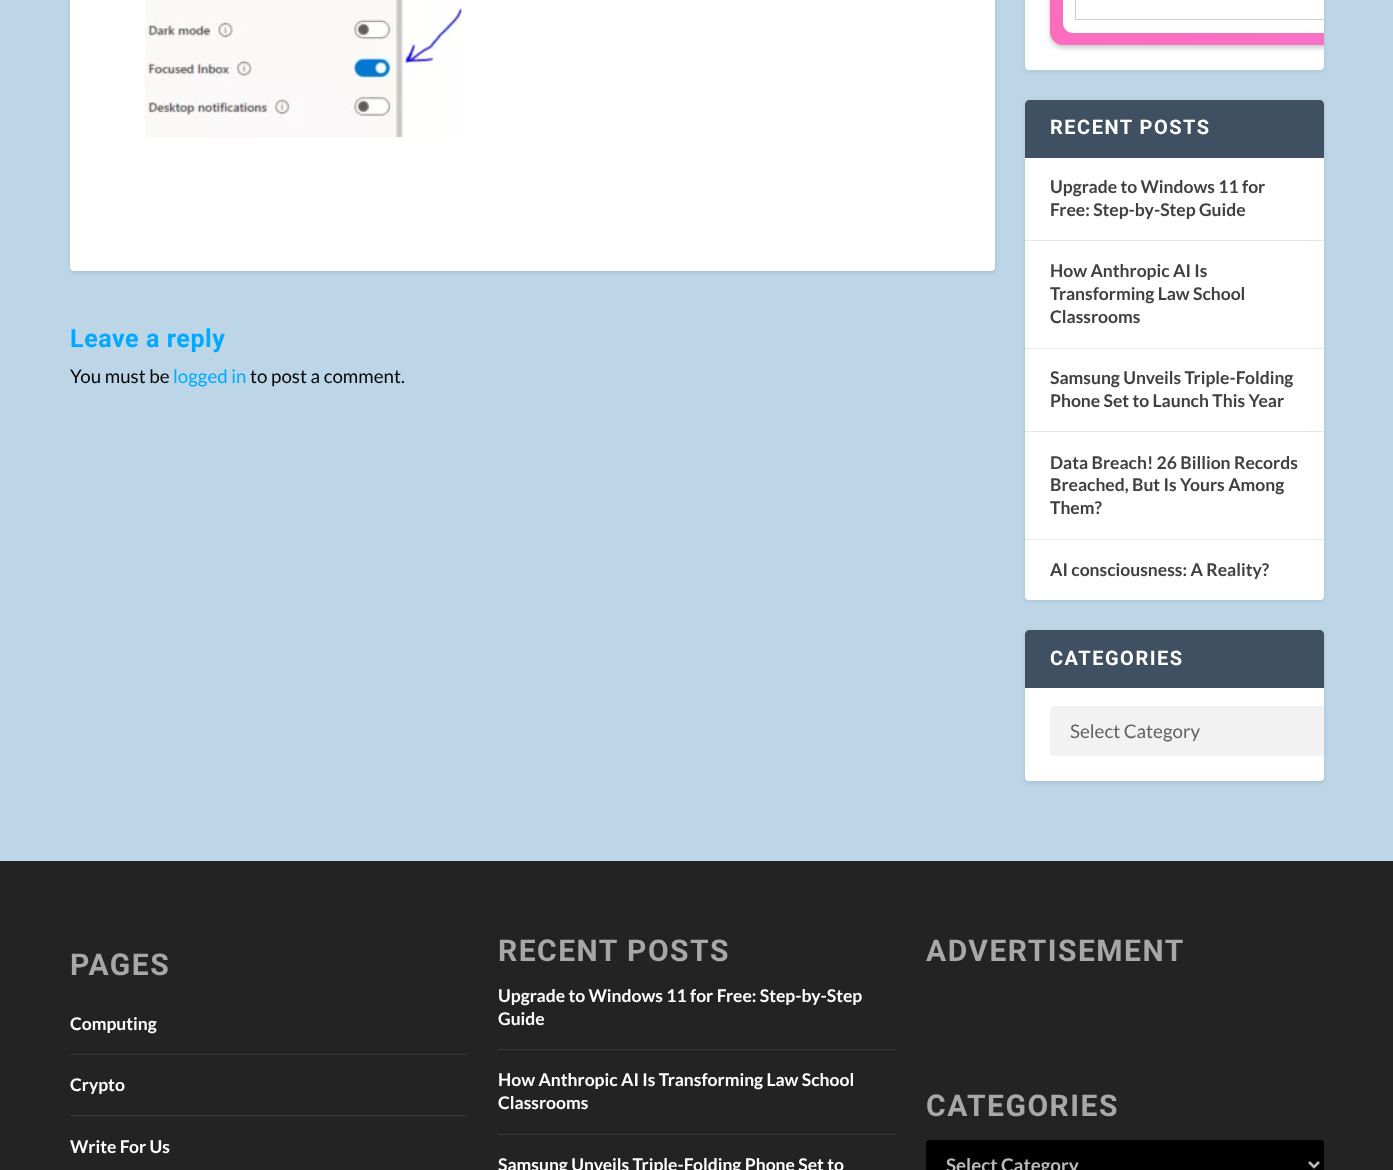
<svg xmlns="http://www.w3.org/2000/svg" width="1393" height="1170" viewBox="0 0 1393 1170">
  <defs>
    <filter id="blur1" x="-50%" y="-200%" width="200%" height="500%"><feGaussianBlur stdDeviation="2"/></filter>
    <clipPath id="clip1"><rect x="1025" y="-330" width="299" height="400" rx="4"/></clipPath>
    <filter id="blur2" x="-50%" y="-200%" width="200%" height="500%"><feGaussianBlur stdDeviation="2.5"/></filter>
    <linearGradient id="g1" gradientUnits="userSpaceOnUse" x1="1167" y1="-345" x2="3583" y2="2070"><stop offset="0" stop-color="#ff69b4"/><stop offset="0.33" stop-color="#ee82ee"/><stop offset="0.67" stop-color="#ff4500"/><stop offset="1" stop-color="#1e90ff"/></linearGradient>
  </defs>
  <rect width="100%" height="100%" fill="#bcd6e7"/>
  <rect x="70" y="-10" width="925" height="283" rx="4" fill="#000000" fill-opacity="0.1" filter="url(#blur1)"/>
  <rect x="70" y="-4" width="925" height="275" rx="4" fill="#ffffff"/>
  <image x="145" y="0" width="317" height="137" href="img1.png"/>
  <text x="70" y="347" font-family="Roboto" font-size="25" font-weight="bold" letter-spacing="0.6" fill="#00a8ff">Leave a reply</text>
  <text x="70" y="383" font-family="Lato" font-size="18.75" fill="#040405">You must be</text>
  <text x="173" y="383" font-family="Lato" font-size="18.75" fill="#00a8ff">logged in</text>
  <text x="250" y="383" font-family="Lato" font-size="18.75" fill="#040405">to post a comment.</text>
  <rect x="1025" y="-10" width="299" height="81" rx="4" fill="#000000" fill-opacity="0.1" filter="url(#blur1)"/>
  <rect x="1025" y="-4" width="299" height="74" rx="4" fill="#ffffff"/>
  <g clip-path="url(#clip1)">
    <rect x="1050" y="-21" width="331" height="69" rx="13" fill="#000000" fill-opacity="0.2" filter="url(#blur2)"/>
  </g>
  <path d="M1063-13H1324V45H1063C1056 45 1050 39 1050 32V0C1050-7 1056-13 1063-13Z" fill="url(#g1)"/>
  <path d="M1073-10H1324V33H1073C1067.5 33 1063 28.5 1063 23V0C1063-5.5 1067.5-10 1073-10Z" fill="#ffffff"/>
  <path d="M1075-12V20H1324V19H1076V-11H1324V-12Z" fill="#cccccc"/>
  <rect x="1025" y="101" width="299" height="500" rx="4" fill="#000000" fill-opacity="0.1" filter="url(#blur1)"/>
  <rect x="1025" y="100" width="299" height="500" rx="4" fill="#ffffff"/>
  <path d="M1029 100H1320C1322 100 1324 102 1324 104V158H1025V104C1025 102 1027 100 1029 100Z" fill="#3e5062"/>
  <text x="1050" y="134" font-family="Roboto" font-size="20" font-weight="bold" letter-spacing="1.5" fill="#ffffff">RECENT POSTS</text>
  <rect x="1025" y="240" width="299" height="1" fill="#e6e6e6"/>
  <text x="1050" y="193" font-family="Lato" font-size="17.5" font-weight="bold" fill="#404040">Upgrade to Windows 11 for</text>
  <text x="1050" y="216" font-family="Lato" font-size="17.5" font-weight="bold" fill="#404040">Free: Step-by-Step Guide</text>
  <rect x="1025" y="348" width="299" height="1" fill="#e6e6e6"/>
  <text x="1050" y="277" font-family="Lato" font-size="17.5" font-weight="bold" fill="#404040">How Anthropic AI Is</text>
  <text x="1050" y="300" font-family="Lato" font-size="17.5" font-weight="bold" fill="#404040">Transforming Law School</text>
  <text x="1050" y="323" font-family="Lato" font-size="17.5" font-weight="bold" fill="#404040">Classrooms</text>
  <rect x="1025" y="431" width="299" height="1" fill="#e6e6e6"/>
  <text x="1050" y="384" font-family="Lato" font-size="17.5" font-weight="bold" fill="#404040">Samsung Unveils Triple-Folding</text>
  <text x="1050" y="407" font-family="Lato" font-size="17.5" font-weight="bold" fill="#404040">Phone Set to Launch This Year</text>
  <rect x="1025" y="539" width="299" height="1" fill="#e6e6e6"/>
  <text x="1050" y="469" font-family="Lato" font-size="17.5" font-weight="bold" fill="#404040">Data Breach! 26 Billion Records</text>
  <text x="1050" y="491" font-family="Lato" font-size="17.5" font-weight="bold" fill="#404040">Breached, But Is Yours Among</text>
  <text x="1050" y="514" font-family="Lato" font-size="17.5" font-weight="bold" fill="#404040">Them?</text>
  <text x="1050" y="576" font-family="Lato" font-size="17.5" font-weight="bold" fill="#404040">AI consciousness: A Reality?</text>
  <rect x="1025" y="631" width="299" height="152" rx="4" fill="#000000" fill-opacity="0.1" filter="url(#blur1)"/>
  <rect x="1025" y="630" width="299" height="151" rx="4" fill="#ffffff"/>
  <path d="M1029 630H1320C1322 630 1324 632 1324 634V688H1025V634C1025 632 1027 630 1029 630Z" fill="#3e5062"/>
  <text x="1050" y="665" font-family="Roboto" font-size="20" font-weight="bold" letter-spacing="1.5" fill="#ffffff">CATEGORIES</text>
  <path d="M1054 706H1324V756H1054C1052 756 1050 754 1050 752V710C1050 708 1052 706 1054 706Z" fill="#f2f2f2"/>
  <text x="1070" y="738" font-family="Lato" font-size="18.75" fill="#616161">Select Category</text>
  <rect x="0" y="861" width="1393" height="309" fill="#232323"/>
  <text x="70" y="975" font-family="Roboto" font-size="30" font-weight="bold" letter-spacing="1.5" fill="#a7a7a7">PAGES</text>
  <rect x="70" y="1054" width="398" height="1" fill="#393939"/>
  <text x="70" y="1030" font-family="Lato" font-size="17.5" font-weight="bold" fill="#ffffff">Computing</text>
  <rect x="70" y="1115" width="398" height="1" fill="#393939"/>
  <text x="70" y="1091" font-family="Lato" font-size="17.5" font-weight="bold" fill="#ffffff">Crypto</text>
  <text x="70" y="1153" font-family="Lato" font-size="17.5" font-weight="bold" fill="#ffffff">Write For Us</text>
  <text x="498" y="961" font-family="Roboto" font-size="30" font-weight="bold" letter-spacing="1.5" fill="#a7a7a7">RECENT POSTS</text>
  <rect x="498" y="1049" width="398" height="1" fill="#393939"/>
  <text x="498" y="1002" font-family="Lato" font-size="17.5" font-weight="bold" fill="#ffffff">Upgrade to Windows 11 for Free: Step-by-Step</text>
  <text x="498" y="1025" font-family="Lato" font-size="17.5" font-weight="bold" fill="#ffffff">Guide</text>
  <rect x="498" y="1134" width="398" height="1" fill="#393939"/>
  <text x="498" y="1086" font-family="Lato" font-size="17.5" font-weight="bold" fill="#ffffff">How Anthropic AI Is Transforming Law School</text>
  <text x="498" y="1109" font-family="Lato" font-size="17.5" font-weight="bold" fill="#ffffff">Classrooms</text>
  <text x="498" y="1171" font-family="Lato" font-size="17.5" font-weight="bold" fill="#ffffff">Samsung Unveils Triple-Folding Phone Set to</text>
  <text x="926" y="961" font-family="Roboto" font-size="30" font-weight="bold" letter-spacing="1.5" fill="#a7a7a7">ADVERTISEMENT</text>
  <text x="926" y="1116" font-family="Roboto" font-size="30" font-weight="bold" letter-spacing="1.5" fill="#a7a7a7">CATEGORIES</text>
  <rect x="926" y="1140" width="398" height="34" rx="4" fill="#000000"/>
  <path d="M1309 1162L1314 1167L1319 1162" fill="none" stroke="#bbbbbb" stroke-width="2.5"/>
  <text x="946" y="1172" font-family="Lato" font-size="18.75" font-weight="bold" fill="#bbbbbb">Select Category</text>
</svg>
